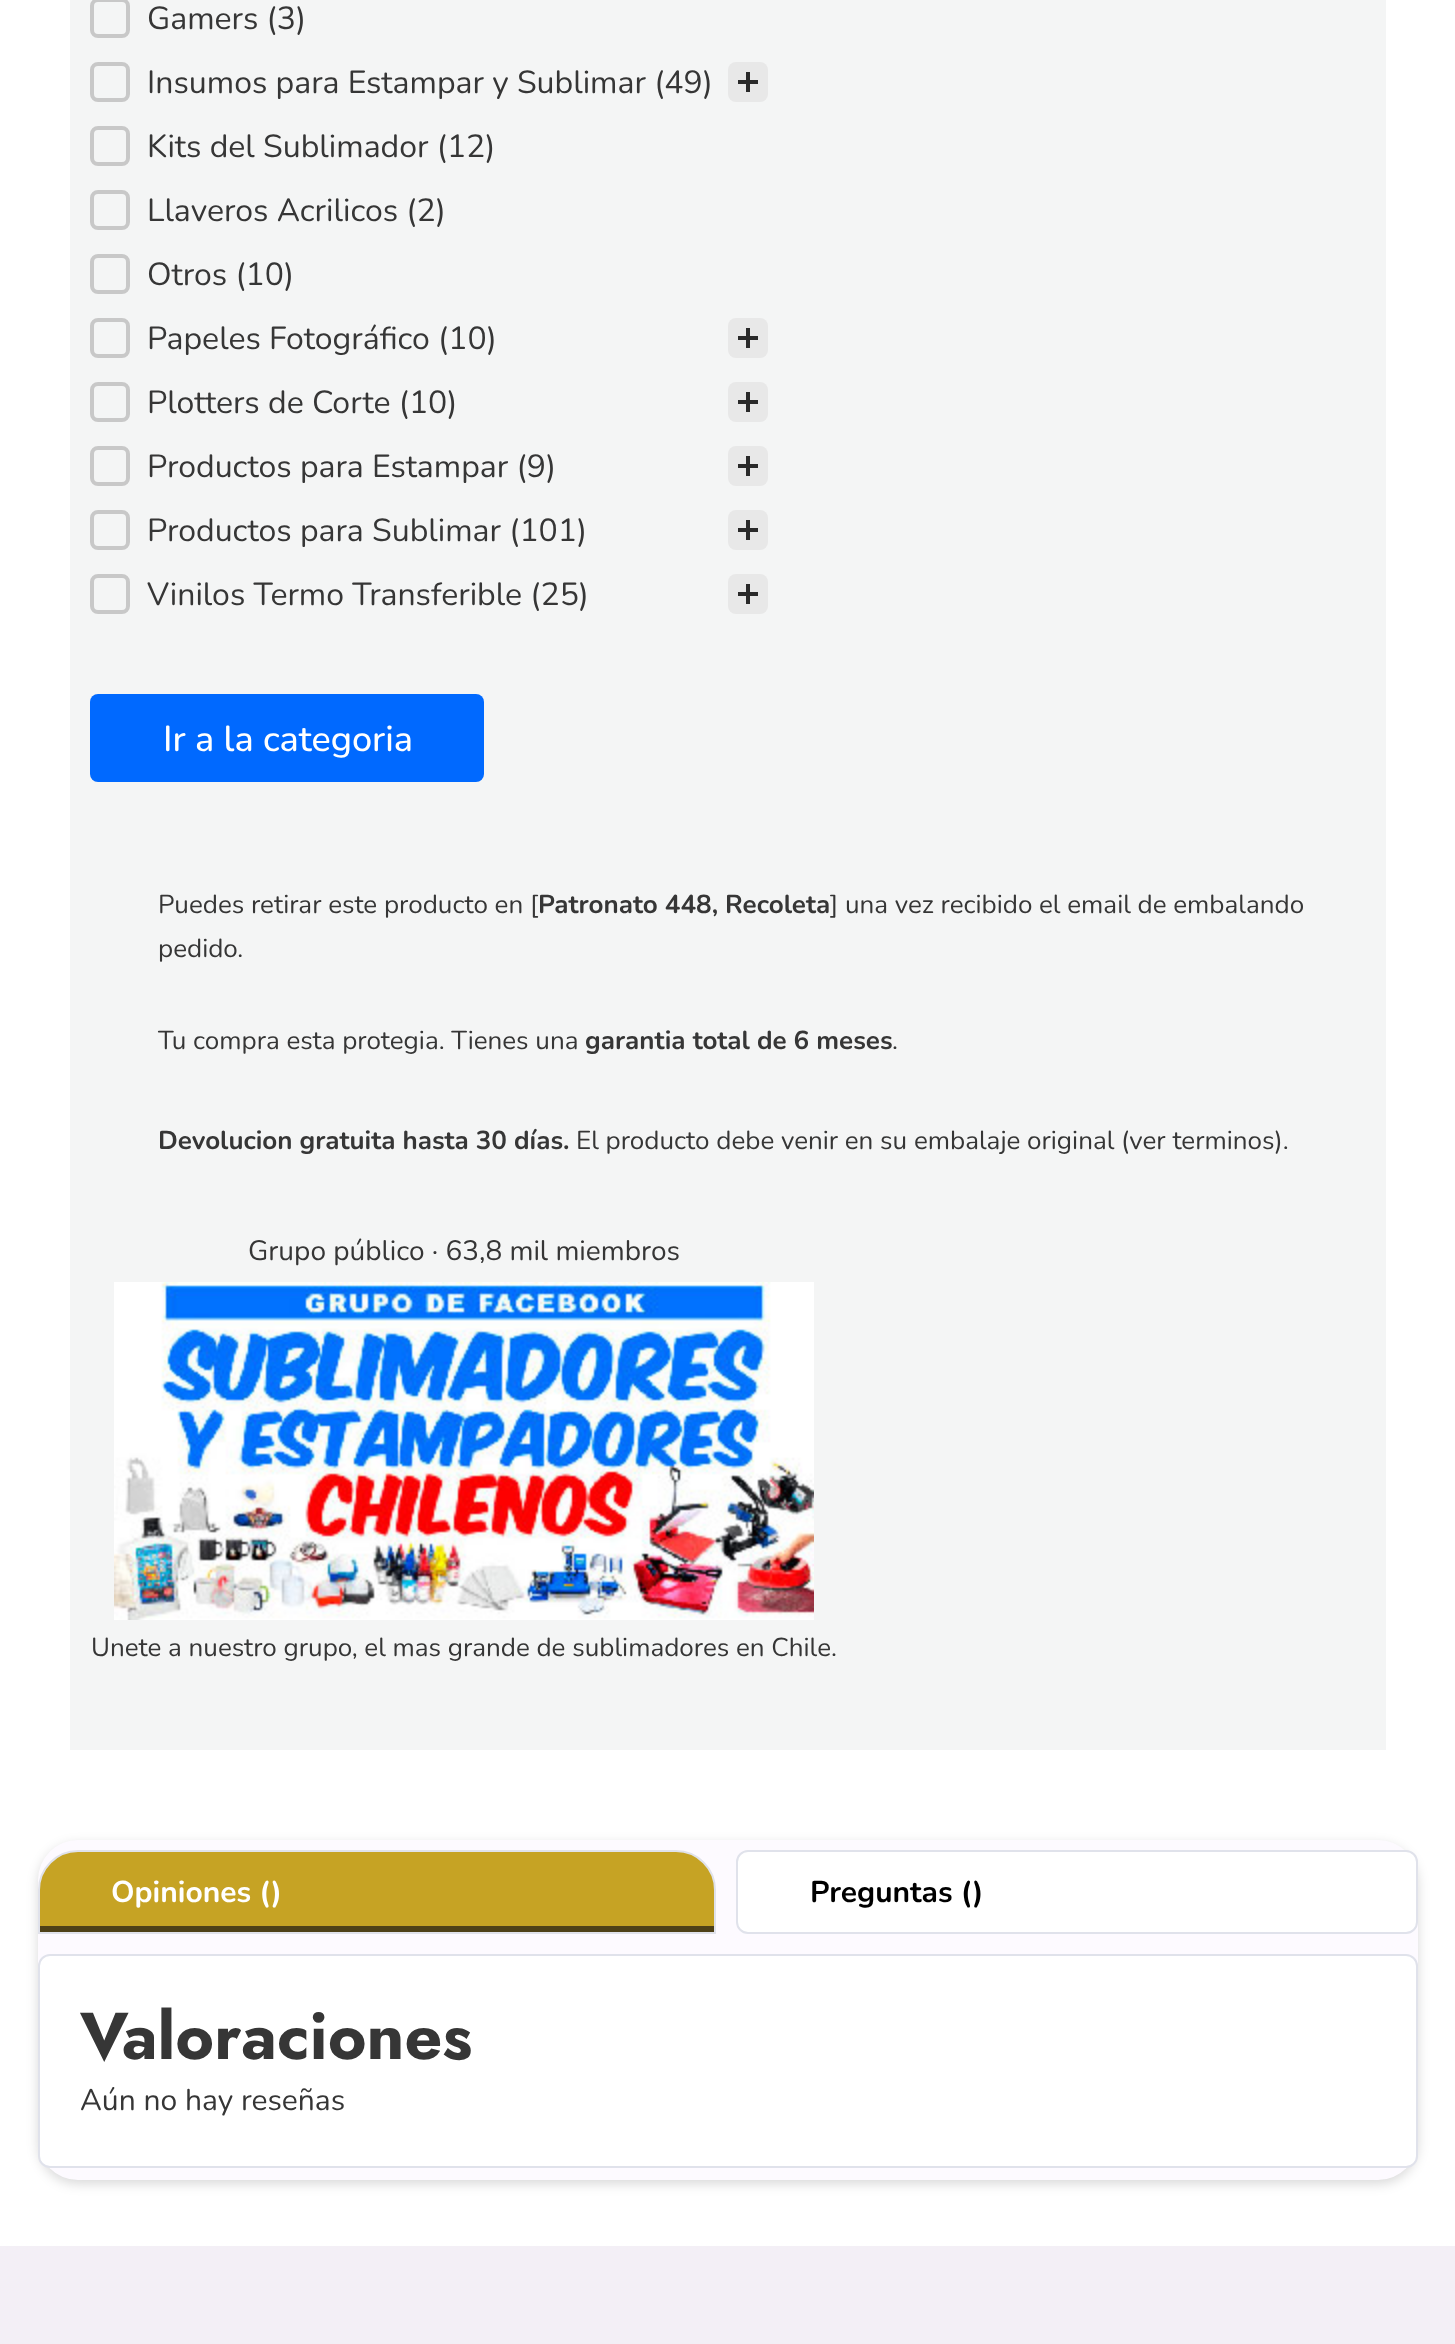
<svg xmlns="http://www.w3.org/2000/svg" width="1455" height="2344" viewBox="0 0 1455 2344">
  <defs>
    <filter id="blur1" x="-50%" y="-200%" width="200%" height="500%"><feGaussianBlur stdDeviation="6"/></filter>
  </defs>
  <rect width="100%" height="100%" fill="#ffffff"/>
  <rect x="70" y="0" width="1316" height="1750" fill="#f4f5f5"/>
  <rect x="92" y="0" width="36" height="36" rx="6" fill="none" stroke="#c8c8c8" stroke-width="4"/>
  <text x="147" y="29" font-family="Nunito" font-size="32" fill="#363636">Gamers (3)</text>
  <rect x="92" y="64" width="36" height="36" rx="6" fill="none" stroke="#c8c8c8" stroke-width="4"/>
  <text x="147" y="93" font-family="Nunito" font-size="32" fill="#363636">Insumos para Estampar y Sublimar (49)</text>
  <rect x="728" y="62" width="40" height="40" rx="8" fill="#e8e8e8"/>
  <rect x="738" y="80" width="20" height="4" fill="#2a2a2a"/>
  <rect x="746" y="72" width="4" height="20" fill="#2a2a2a"/>
  <rect x="92" y="128" width="36" height="36" rx="6" fill="none" stroke="#c8c8c8" stroke-width="4"/>
  <text x="147" y="157" font-family="Nunito" font-size="32" fill="#363636">Kits del Sublimador (12)</text>
  <rect x="92" y="192" width="36" height="36" rx="6" fill="none" stroke="#c8c8c8" stroke-width="4"/>
  <text x="147" y="221" font-family="Nunito" font-size="32" fill="#363636">Llaveros Acrilicos (2)</text>
  <rect x="92" y="256" width="36" height="36" rx="6" fill="none" stroke="#c8c8c8" stroke-width="4"/>
  <text x="147" y="285" font-family="Nunito" font-size="32" fill="#363636">Otros (10)</text>
  <rect x="92" y="320" width="36" height="36" rx="6" fill="none" stroke="#c8c8c8" stroke-width="4"/>
  <text x="147" y="349" font-family="Nunito" font-size="32" fill="#363636">Papeles Fotográfico (10)</text>
  <rect x="728" y="318" width="40" height="40" rx="8" fill="#e8e8e8"/>
  <rect x="738" y="336" width="20" height="4" fill="#2a2a2a"/>
  <rect x="746" y="328" width="4" height="20" fill="#2a2a2a"/>
  <rect x="92" y="384" width="36" height="36" rx="6" fill="none" stroke="#c8c8c8" stroke-width="4"/>
  <text x="147" y="413" font-family="Nunito" font-size="32" fill="#363636">Plotters de Corte (10)</text>
  <rect x="728" y="382" width="40" height="40" rx="8" fill="#e8e8e8"/>
  <rect x="738" y="400" width="20" height="4" fill="#2a2a2a"/>
  <rect x="746" y="392" width="4" height="20" fill="#2a2a2a"/>
  <rect x="92" y="448" width="36" height="36" rx="6" fill="none" stroke="#c8c8c8" stroke-width="4"/>
  <text x="147" y="477" font-family="Nunito" font-size="32" fill="#363636">Productos para Estampar (9)</text>
  <rect x="728" y="446" width="40" height="40" rx="8" fill="#e8e8e8"/>
  <rect x="738" y="464" width="20" height="4" fill="#2a2a2a"/>
  <rect x="746" y="456" width="4" height="20" fill="#2a2a2a"/>
  <rect x="92" y="512" width="36" height="36" rx="6" fill="none" stroke="#c8c8c8" stroke-width="4"/>
  <text x="147" y="541" font-family="Nunito" font-size="32" fill="#363636">Productos para Sublimar (101)</text>
  <rect x="728" y="510" width="40" height="40" rx="8" fill="#e8e8e8"/>
  <rect x="738" y="528" width="20" height="4" fill="#2a2a2a"/>
  <rect x="746" y="520" width="4" height="20" fill="#2a2a2a"/>
  <rect x="92" y="576" width="36" height="36" rx="6" fill="none" stroke="#c8c8c8" stroke-width="4"/>
  <text x="147" y="605" font-family="Nunito" font-size="32" fill="#363636">Vinilos Termo Transferible (25)</text>
  <rect x="728" y="574" width="40" height="40" rx="8" fill="#e8e8e8"/>
  <rect x="738" y="592" width="20" height="4" fill="#2a2a2a"/>
  <rect x="746" y="584" width="4" height="20" fill="#2a2a2a"/>
  <rect x="90" y="694" width="394" height="88" rx="8" fill="#0069ff"/>
  <text x="163" y="751" font-family="Nunito" font-size="36" font-weight="500" fill="#ffffff">Ir a la categoria</text>
  <text x="158" y="913" font-family="Nunito" font-size="26" fill="#363636">Puedes retirar este producto en [</text>
  <text x="538" y="913" font-family="Nunito" font-size="26" font-weight="bold" fill="#363636">Patronato 448, Recoleta</text>
  <text x="830" y="913" font-family="Nunito" font-size="26" fill="#363636">] una vez recibido el email de embalando</text>
  <text x="158" y="957" font-family="Nunito" font-size="26" fill="#363636">pedido.</text>
  <text x="158" y="1049" font-family="Nunito" font-size="26" fill="#363636">Tu compra esta protegia. Tienes una</text>
  <text x="585" y="1049" font-family="Nunito" font-size="26" font-weight="bold" fill="#363636">garantia total de 6 meses</text>
  <text x="892" y="1049" font-family="Nunito" font-size="26" fill="#363636">.</text>
  <text x="158" y="1149" font-family="Nunito" font-size="26" font-weight="bold" fill="#363636">Devolucion gratuita hasta 30 días.</text>
  <text x="576" y="1149" font-family="Nunito" font-size="26" fill="#363636">El producto debe venir en su embalaje original (ver terminos).</text>
  <text x="248" y="1260" font-family="Nunito" font-size="28" fill="#363636">Grupo público · 63,8 mil miembros</text>
  <image x="114" y="1282" width="700" height="338" href="img1.png"/>
  <text x="91" y="1656" font-family="Nunito" font-size="26" fill="#363636">Unete a nuestro grupo, el mas grande de sublimadores en Chile.</text>
  <rect x="38" y="1844" width="1380" height="340" rx="40" fill="#000000" fill-opacity="0.15" filter="url(#blur1)"/>
  <rect x="38" y="1840" width="1380" height="340" rx="40" fill="#fdfaff"/>
  <path d="M78 1851H676C697.5 1851 715 1868.5 715 1890V1933H39V1890C39 1868.5 56.5 1851 78 1851Z" fill="#c6a324" stroke="#e0e2eb" stroke-width="2"/>
  <text x="111" y="1902" font-family="Nunito" font-size="30" font-weight="bold" fill="#ffffff">Opiniones ()</text>
  <rect x="40" y="1926" width="674" height="6" fill="#4e4118"/>
  <rect x="737" y="1851" width="680" height="82" rx="11" fill="#ffffff" stroke="#e0e2eb" stroke-width="2"/>
  <text x="810" y="1902" font-family="Nunito" font-size="30" font-weight="bold" fill="#000000">Preguntas ()</text>
  <rect x="39" y="1955" width="1378" height="212" rx="11" fill="#ffffff" stroke="#e0e2eb" stroke-width="2"/>
  <text x="80" y="2059" font-family="Jost" font-size="66" font-weight="bold" fill="#363636">Valoraciones</text>
  <text x="80" y="2110" font-family="Nunito" font-size="30" fill="#363636">Aún no hay reseñas</text>
  <rect x="0" y="2246" width="1455" height="98" fill="#f3eff6"/>
</svg>
